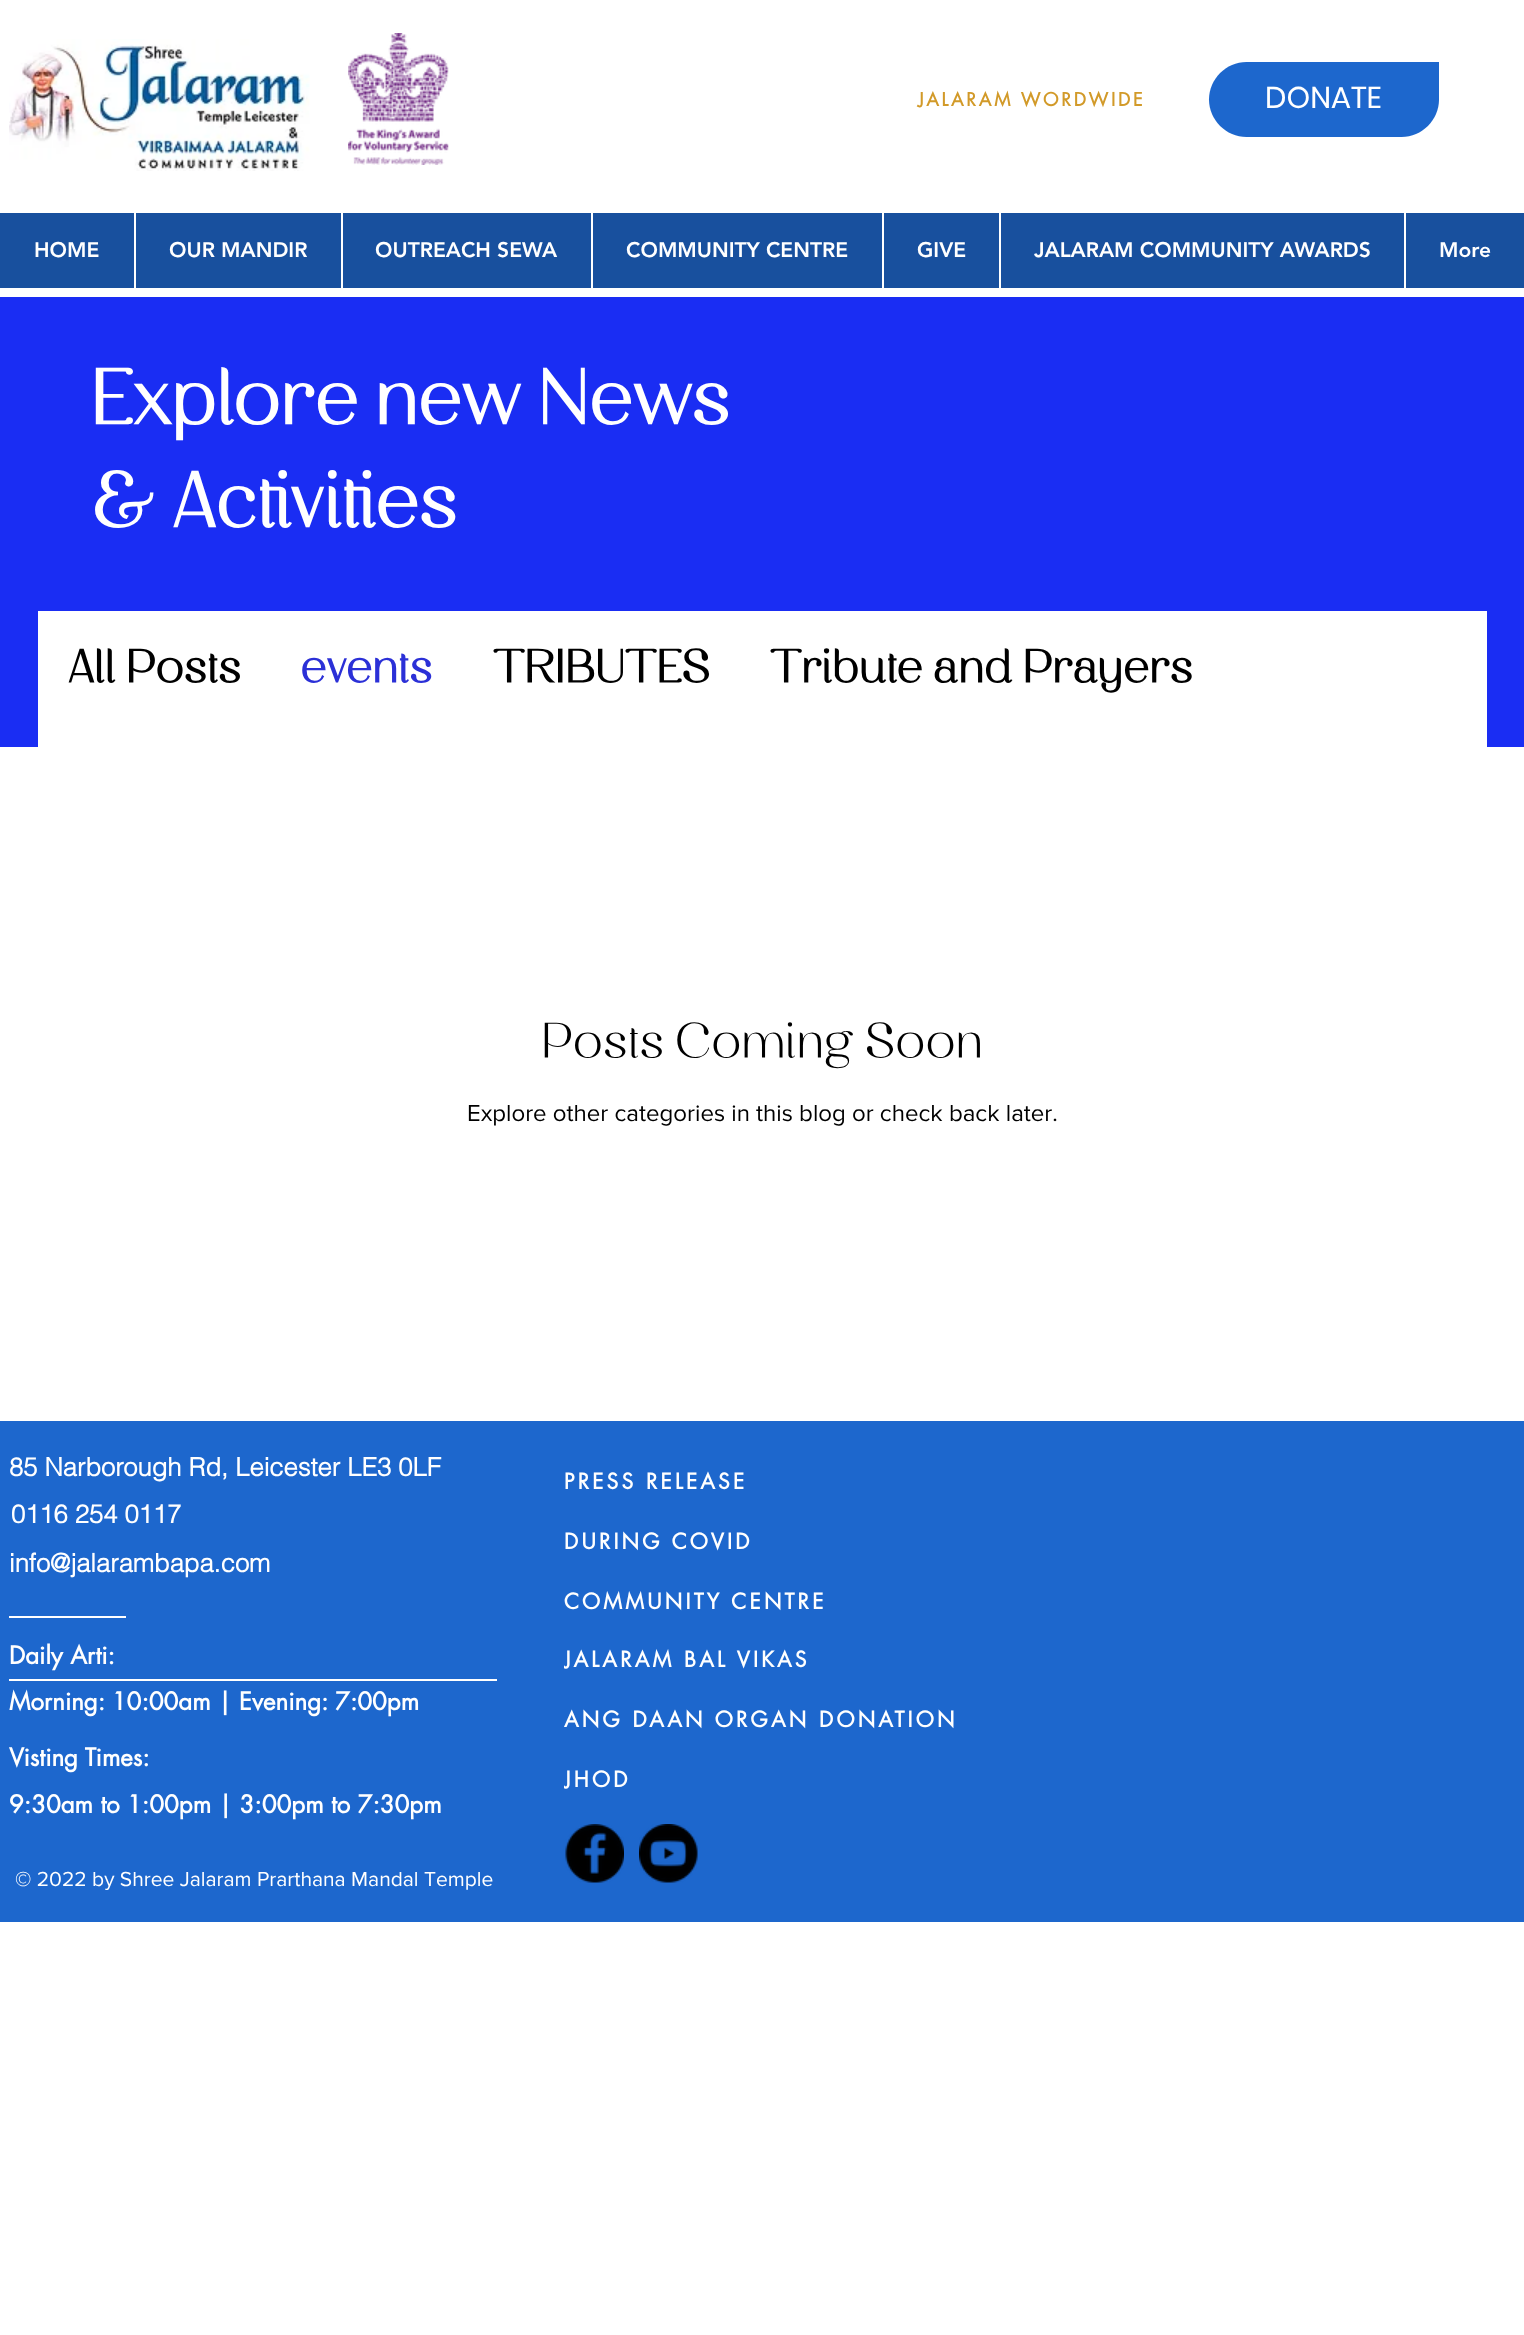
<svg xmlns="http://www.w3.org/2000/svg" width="1524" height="2335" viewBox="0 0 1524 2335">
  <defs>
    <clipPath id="clip1"><rect x="564" y="1646" width="246" height="28"/></clipPath>
    <clipPath id="clip2"><rect x="564" y="1766" width="66" height="28"/></clipPath>
  </defs>
  <rect width="100%" height="100%" fill="#ffffff"/>
  <image x="9" y="39" width="301" height="132" href="img1.png"/>
  <image x="348" y="33" width="101" height="132" href="img2.png"/>
  <text x="918" y="106" font-family="futura" font-size="18" font-weight="bold" letter-spacing="2.75" fill="#d29a29">JALARAM WORDWIDE</text>
  <path d="M1246.5 62H1439V99.5C1439 120 1422 137 1401.5 137H1246.5C1226 137 1209 120 1209 99.5C1209 79 1226 62 1246.5 62Z" fill="#1d67cd"/>
  <text x="1265" y="108" font-family="Poppins" font-size="30" fill="#ffffff">DONATE</text>
  <rect x="0" y="213" width="1524" height="75" fill="#18509e"/>
  <text x="34" y="257" font-family="'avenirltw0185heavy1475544'" font-size="21" font-weight="900" fill="#ffffff">HOME</text>
  <rect x="134" y="213" width="2" height="75" fill="#ffffff"/>
  <text x="169" y="257" font-family="'avenirltw0185heavy1475544'" font-size="21" font-weight="900" fill="#ffffff">OUR MANDIR</text>
  <rect x="341" y="213" width="2" height="75" fill="#ffffff"/>
  <text x="375" y="257" font-family="'avenirltw0185heavy1475544'" font-size="21" font-weight="900" fill="#ffffff">OUTREACH SEWA</text>
  <rect x="591" y="213" width="2" height="75" fill="#ffffff"/>
  <text x="626" y="257" font-family="'avenirltw0185heavy1475544'" font-size="21" font-weight="900" fill="#ffffff">COMMUNITY CENTRE</text>
  <rect x="882" y="213" width="2" height="75" fill="#ffffff"/>
  <text x="917" y="257" font-family="'avenirltw0185heavy1475544'" font-size="21" font-weight="900" fill="#ffffff">GIVE</text>
  <rect x="999" y="213" width="2" height="75" fill="#ffffff"/>
  <text x="1034" y="257" font-family="'avenirltw0185heavy1475544'" font-size="21" font-weight="900" fill="#ffffff">JALARAM COMMUNITY AWARDS</text>
  <rect x="1404" y="213" width="2" height="75" fill="#ffffff"/>
  <text x="1439" y="257" font-family="'avenirltw0185heavy1475544'" font-size="21" font-weight="900" fill="#ffffff">More</text>
  <rect x="0" y="297" width="1524" height="450" fill="#1a2df3"/>
  <text x="90" y="425" font-family="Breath" font-size="75" font-weight="bold" fill="#ffffff">Explore new News</text>
  <text x="90" y="528" font-family="Breath" font-size="75" font-weight="bold" fill="#ffffff">&amp; Activities</text>
  <rect x="38" y="611" width="1449" height="136" fill="#ffffff"/>
  <text x="68" y="683" font-family="Breath" font-size="45" font-weight="bold" fill="#000000">All Posts</text>
  <text x="300" y="683" font-family="Breath" font-size="45" font-weight="bold" fill="#2b30d7">events</text>
  <text x="493" y="683" font-family="Breath" font-size="45" font-weight="bold" fill="#000000">TRIBUTES</text>
  <text x="770" y="683" font-family="Breath" font-size="45" font-weight="bold" fill="#000000">Tribute and Prayers</text>
  <text x="541" y="1058" font-family="Breath" font-size="48" fill="#000000">Posts Coming Soon</text>
  <text x="467" y="1121" font-family="'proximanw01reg'" font-size="24" fill="#000000">Explore other categories in this blog or check back later.</text>
  <rect x="0" y="1421" width="1524" height="501" fill="#1d67cd"/>
  <text x="9" y="1476" font-family="helvetica" font-size="25.5" font-weight="bold" fill="#ffffff">85 Narborough Rd, Leicester LE3 0LF</text>
  <text x="11" y="1523" font-family="helvetica" font-size="25.5" font-weight="bold" fill="#ffffff">0116 254 0117</text>
  <text x="9" y="1572" font-family="helvetica" font-size="25.5" font-weight="bold" fill="#ffffff">info@jalarambapa.com</text>
  <rect x="9" y="1616" width="117" height="2" fill="#ffffff"/>
  <text x="9" y="1664" font-family="futura" font-size="24" font-weight="bold" fill="#ffffff">Daily Arti:</text>
  <text x="9" y="1710" font-family="futura" font-size="24" font-weight="bold" fill="#ffffff">Morning: 10:00am | Evening: 7:00pm</text>
  <rect x="9" y="1679" width="488" height="2" fill="#ffffff"/>
  <text x="9" y="1766" font-family="futura" font-size="24" font-weight="bold" fill="#ffffff">Visting Times:</text>
  <text x="9" y="1813" font-family="futura" font-size="24" font-weight="bold" fill="#ffffff">9:30am to 1:00pm | 3:00pm to 7:30pm</text>
  <text x="15" y="1886" font-family="'proximanw01reg'" font-size="21" fill="#ffffff">© 2022 by Shree Jalaram Prarthana Mandal Temple</text>
  <text x="564" y="1489" font-family="futura" font-size="21" font-weight="bold" letter-spacing="3.15" fill="#ffffff">PRESS RELEASE</text>
  <text x="564" y="1549" font-family="futura" font-size="21" font-weight="bold" letter-spacing="3.15" fill="#ffffff">DURING COVID</text>
  <text x="564" y="1609" font-family="futura" font-size="21" font-weight="bold" letter-spacing="3.15" fill="#ffffff">COMMUNITY CENTRE</text>
  <g clip-path="url(#clip1)">
    <text x="564" y="1667" font-family="futura" font-size="21" font-weight="bold" letter-spacing="3.15" fill="#ffffff">JALARAM BAL VIKAS</text>
  </g>
  <text x="564" y="1727" font-family="futura" font-size="21" font-weight="bold" letter-spacing="3.15" fill="#ffffff">ANG DAAN ORGAN DONATION</text>
  <g clip-path="url(#clip2)">
    <text x="564" y="1787" font-family="futura" font-size="21" font-weight="bold" letter-spacing="3.15" fill="#ffffff">JHOD</text>
  </g>
  <image x="565" y="1824" width="59" height="59" href="img3.png"/>
  <image x="639" y="1824" width="59" height="59" href="img4.png"/>
</svg>
